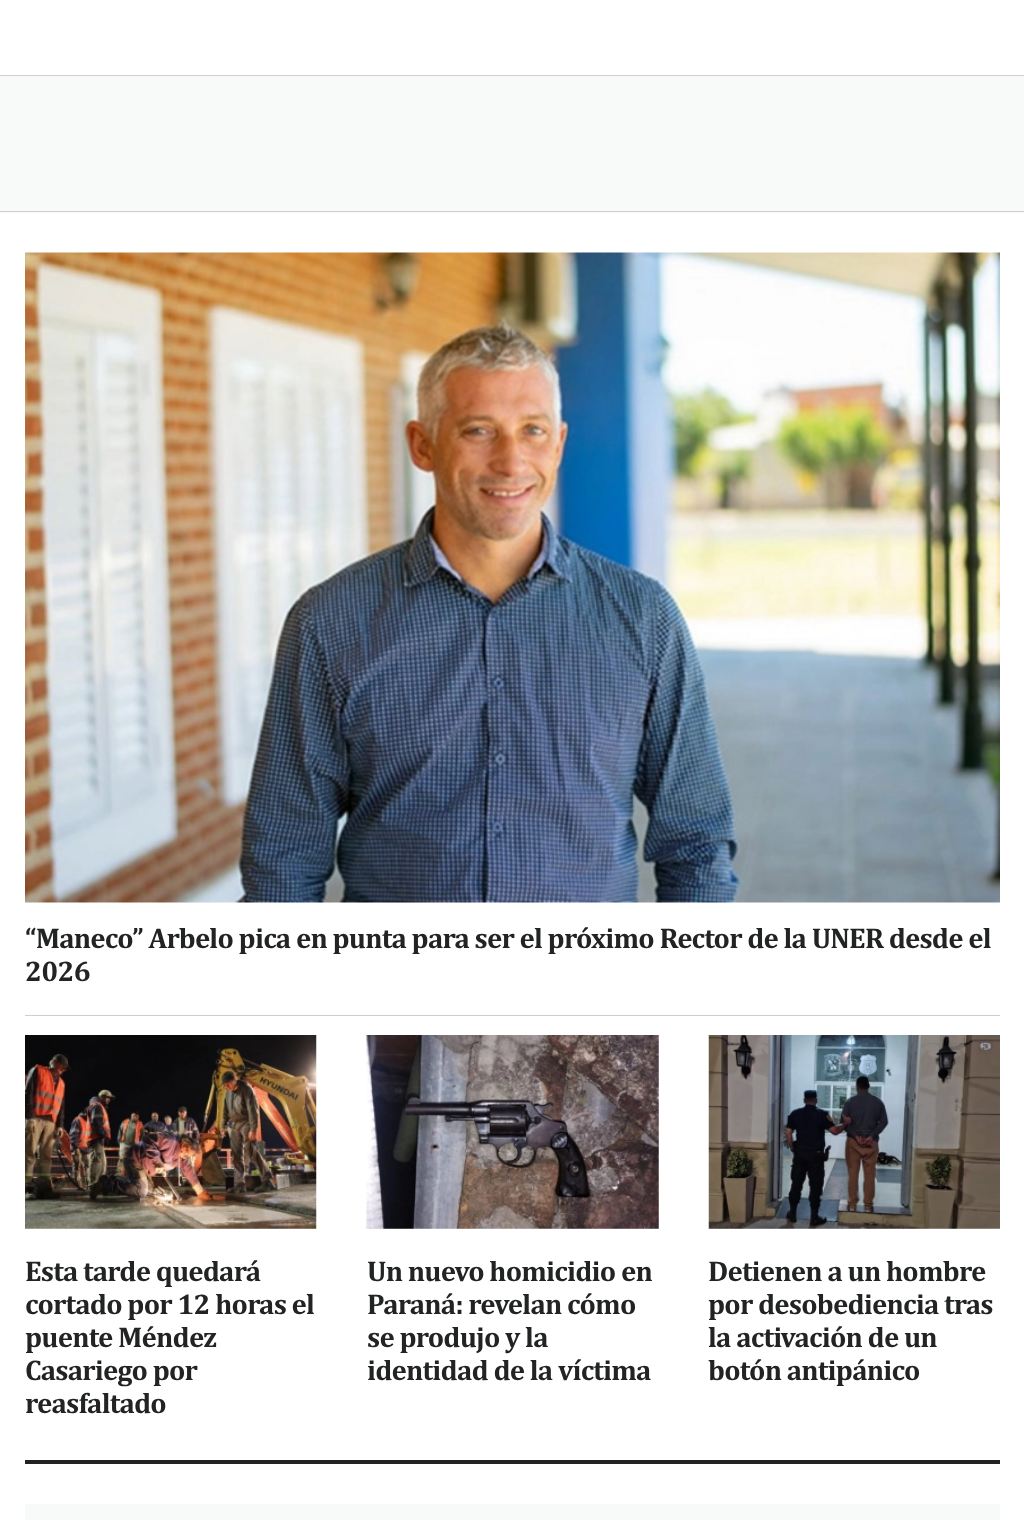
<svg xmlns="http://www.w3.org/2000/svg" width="1024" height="1520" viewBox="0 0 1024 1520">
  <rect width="100%" height="100%" fill="#ffffff"/>
  <rect x="0" y="75" width="1024" height="1" fill="#cecece"/>
  <rect x="0" y="76" width="1024" height="137" fill="#f8f9f9"/>
  <rect x="0" y="211" width="1024" height="1" fill="#cecece"/>
  <rect x="25" y="1460" width="975" height="4" fill="#222323"/>
  <image x="25" y="252" width="975" height="651" href="img1.png"/>
  <text x="25" y="948" font-family="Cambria" font-size="28.75" font-weight="bold" letter-spacing="-0.8" fill="#222323">“Maneco” Arbelo pica en punta para ser el próximo Rector de la UNER desde el</text>
  <text x="25" y="981" font-family="Cambria" font-size="28.75" font-weight="bold" letter-spacing="-0.8" fill="#222323">2026</text>
  <rect x="25" y="1015" width="975" height="1" fill="#cecece"/>
  <image x="25" y="1035" width="292" height="194" href="img2.png"/>
  <text x="25" y="1281" font-family="Cambria" font-size="28.75" font-weight="bold" letter-spacing="-0.8" fill="#222323">Esta tarde quedará</text>
  <text x="25" y="1314" font-family="Cambria" font-size="28.75" font-weight="bold" letter-spacing="-0.8" fill="#222323">cortado por 12 horas el</text>
  <text x="25" y="1347" font-family="Cambria" font-size="28.75" font-weight="bold" letter-spacing="-0.8" fill="#222323">puente Méndez</text>
  <text x="25" y="1380" font-family="Cambria" font-size="28.75" font-weight="bold" letter-spacing="-0.8" fill="#222323">Casariego por</text>
  <text x="25" y="1413" font-family="Cambria" font-size="28.75" font-weight="bold" letter-spacing="-0.8" fill="#222323">reasfaltado</text>
  <image x="366" y="1035" width="293" height="194" href="img3.png"/>
  <text x="367" y="1281" font-family="Cambria" font-size="28.75" font-weight="bold" letter-spacing="-0.8" fill="#222323">Un nuevo homicidio en</text>
  <text x="367" y="1314" font-family="Cambria" font-size="28.75" font-weight="bold" letter-spacing="-0.8" fill="#222323">Paraná: revelan cómo</text>
  <text x="367" y="1347" font-family="Cambria" font-size="28.75" font-weight="bold" letter-spacing="-0.8" fill="#222323">se produjo y la</text>
  <text x="367" y="1380" font-family="Cambria" font-size="28.75" font-weight="bold" letter-spacing="-0.8" fill="#222323">identidad de la víctima</text>
  <image x="708" y="1035" width="292" height="194" href="img4.png"/>
  <text x="708" y="1281" font-family="Cambria" font-size="28.75" font-weight="bold" letter-spacing="-0.8" fill="#222323">Detienen a un hombre</text>
  <text x="708" y="1314" font-family="Cambria" font-size="28.75" font-weight="bold" letter-spacing="-0.8" fill="#222323">por desobediencia tras</text>
  <text x="708" y="1347" font-family="Cambria" font-size="28.75" font-weight="bold" letter-spacing="-0.8" fill="#222323">la activación de un</text>
  <text x="708" y="1380" font-family="Cambria" font-size="28.75" font-weight="bold" letter-spacing="-0.8" fill="#222323">botón antipánico</text>
  <rect x="25" y="1504" width="975" height="16" fill="#f8f9f9"/>
</svg>
